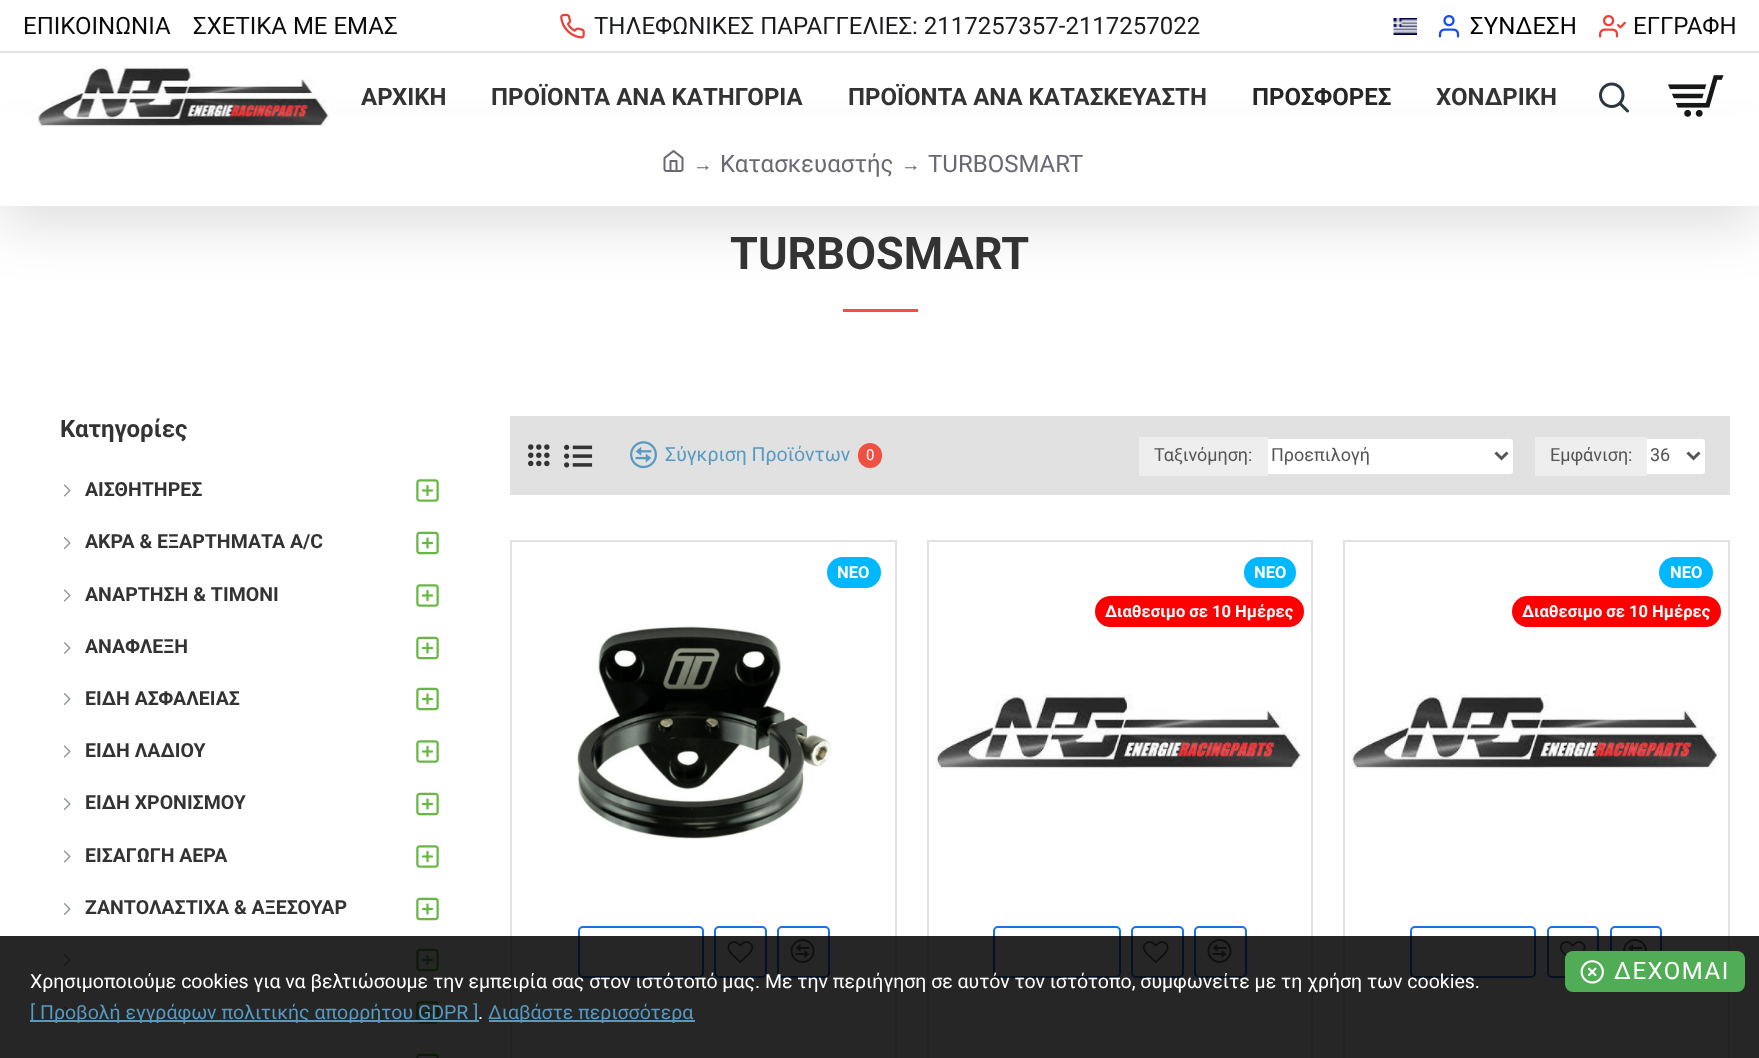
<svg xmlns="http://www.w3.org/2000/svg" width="1759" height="1058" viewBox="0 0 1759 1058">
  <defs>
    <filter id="blur1" x="-50%" y="-200%" width="200%" height="500%"><feGaussianBlur stdDeviation="30"/></filter>
  </defs>
  <rect width="100%" height="100%" fill="#ffffff"/>
  <text x="23" y="34" font-family="Roboto" font-size="24" fill="#0b0b0b">ΕΠΙΚΟΙΝΩΝΙΑ</text>
  <text x="193" y="34" font-family="Roboto" font-size="24" fill="#0b0b0b">ΣΧΕΤΙΚΑ ΜΕ ΕΜΑΣ</text>
  <image x="560" y="13" width="25" height="26" href="img1.png"/>
  <text x="594" y="34" font-family="Roboto" font-size="24" fill="#1a1b1d">ΤΗΛΕΦΩΝΙΚΕΣ ΠΑΡΑΓΓΕΛΙΕΣ: 2117257357-2117257022</text>
  <image x="1393" y="18" width="24" height="17" href="img2.png"/>
  <image x="1438" y="15" width="22" height="23" href="img3.png"/>
  <text x="1470" y="34" font-family="Roboto" font-size="24" fill="#000000">ΣΥΝΔΕΣΗ</text>
  <image x="1599" y="15" width="27" height="23" href="img4.png"/>
  <text x="1633" y="34" font-family="Roboto" font-size="24" fill="#0b0b0b">ΕΓΓΡΑΦΗ</text>
  <rect x="0" y="158" width="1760" height="63" fill="#000000" fill-opacity="0.15" filter="url(#blur1)"/>
  <rect x="0" y="113" width="1759" height="93" fill="#ffffff"/>
  <image x="37" y="66" width="293" height="61" href="img5.png"/>
  <text x="361" y="105" font-family="Roboto" font-size="24" font-weight="bold" fill="#333333">ΑΡΧΙΚΗ</text>
  <text x="491" y="105" font-family="Roboto" font-size="24" font-weight="bold" fill="#333333">ΠΡΟΪΟΝΤΑ ΑΝΑ ΚΑΤΗΓΟΡΙΑ</text>
  <text x="848" y="105" font-family="Roboto" font-size="24" font-weight="bold" fill="#333333">ΠΡΟΪΟΝΤΑ ΑΝΑ ΚΑΤΑΣΚΕΥΑΣΤΗ</text>
  <text x="1252" y="105" font-family="Roboto" font-size="24" font-weight="bold" fill="#262626">ΠΡΟΣΦΟΡΕΣ</text>
  <text x="1436" y="105" font-family="Roboto" font-size="24" font-weight="bold" fill="#333333">ΧΟΝΔΡΙΚΗ</text>
  <image x="1599" y="82" width="30" height="31" href="img6.png"/>
  <image x="1668" y="75" width="56" height="42" href="img7.png"/>
  <rect x="0" y="51" width="1759" height="2" fill="#e2e2e2"/>
  <image x="663" y="150" width="21" height="22" href="img8.png"/>
  <text x="693" y="171" font-family="Liberation Serif" font-size="19.5" fill="#696973">→</text>
  <text x="720" y="172" font-family="Roboto" font-size="24" fill="#696973">Κατασκευαστής</text>
  <text x="901" y="171" font-family="Liberation Serif" font-size="19.5" fill="#696973">→</text>
  <text x="928" y="172" font-family="Roboto" font-size="24" fill="#696973">TURBOSMART</text>
  <text x="730" y="269" font-family="Roboto" font-size="45" font-weight="bold" fill="#333333">TURBOSMART</text>
  <rect x="843" y="309" width="75" height="3" fill="#ef5042"/>
  <text x="60" y="437" font-family="Roboto" font-size="24" font-weight="bold" fill="#333333">Κατηγορίες</text>
  <image x="63" y="484" width="8" height="13" href="img9.png"/>
  <text x="85" y="496" font-family="Roboto" font-size="19.5" font-weight="bold" fill="#333333">ΑΙΣΘΗΤΗΡΕΣ</text>
  <image x="416" y="479" width="23" height="23" href="img10.png"/>
  <image x="63" y="537" width="8" height="12" href="img11.png"/>
  <text x="85" y="548" font-family="Roboto" font-size="19.5" font-weight="bold" fill="#333333">ΑΚΡΑ &amp; ΕΞΑΡΤΗΜΑΤΑ A/C</text>
  <image x="416" y="531" width="23" height="24" href="img12.png"/>
  <image x="63" y="589" width="8" height="13" href="img9.png"/>
  <text x="85" y="601" font-family="Roboto" font-size="19.5" font-weight="bold" fill="#333333">ΑΝΑΡΤΗΣΗ &amp; ΤΙΜΟΝΙ</text>
  <image x="416" y="584" width="23" height="23" href="img10.png"/>
  <image x="63" y="642" width="8" height="12" href="img11.png"/>
  <text x="85" y="653" font-family="Roboto" font-size="19.5" font-weight="bold" fill="#333333">ΑΝΑΦΛΕΞΗ</text>
  <image x="416" y="636" width="23" height="24" href="img12.png"/>
  <image x="63" y="693" width="8" height="12" href="img11.png"/>
  <text x="85" y="705" font-family="Roboto" font-size="19.5" font-weight="bold" fill="#333333">ΕΙΔΗ ΑΣΦΑΛΕΙΑΣ</text>
  <image x="416" y="687" width="23" height="24" href="img12.png"/>
  <image x="63" y="745" width="8" height="13" href="img9.png"/>
  <text x="85" y="757" font-family="Roboto" font-size="19.5" font-weight="bold" fill="#333333">ΕΙΔΗ ΛΑΔΙΟΥ</text>
  <image x="416" y="740" width="23" height="23" href="img10.png"/>
  <image x="63" y="798" width="8" height="12" href="img11.png"/>
  <text x="85" y="809" font-family="Roboto" font-size="19.5" font-weight="bold" fill="#333333">ΕΙΔΗ ΧΡΟΝΙΣΜΟΥ</text>
  <image x="416" y="792" width="23" height="24" href="img12.png"/>
  <image x="63" y="850" width="8" height="13" href="img9.png"/>
  <text x="85" y="862" font-family="Roboto" font-size="19.5" font-weight="bold" fill="#333333">ΕΙΣΑΓΩΓΗ ΑΕΡΑ</text>
  <image x="416" y="845" width="23" height="23" href="img10.png"/>
  <image x="63" y="903" width="8" height="12" href="img11.png"/>
  <text x="85" y="914" font-family="Roboto" font-size="19.5" font-weight="bold" fill="#333333">ΖΑΝΤΟΛΑΣΤΙΧΑ &amp; ΑΞΕΣΟΥΑΡ</text>
  <image x="416" y="897" width="23" height="24" href="img12.png"/>
  <image x="63" y="954" width="8" height="12" href="img11.png"/>
  <image x="416" y="948" width="23" height="24" href="img12.png"/>
  <image x="63" y="1006" width="8" height="13" href="img9.png"/>
  <image x="416" y="1001" width="23" height="23" href="img10.png"/>
  <image x="416" y="1053" width="23" height="5" href="img13.png"/>
  <rect x="510" y="416" width="1220" height="79" fill="#e1e1e1"/>
  <image x="528" y="444" width="22" height="23" href="img14.png"/>
  <image x="564" y="444" width="29" height="24" href="img15.png"/>
  <image x="630" y="441" width="27" height="28" href="img16.png"/>
  <text x="665" y="461" font-family="Roboto" font-size="19.5" fill="#579ac1">Σύγκριση Προϊόντων</text>
  <rect x="858" y="443" width="24" height="25" rx="12" fill="#ef5042"/>
  <text x="866" y="460" font-family="Roboto" font-size="15" fill="#ffffff">0</text>
  <rect x="1264" y="438" width="250" height="37" rx="4" fill="#ffffff" stroke="#e2e2e2" stroke-width="2"/>
  <rect x="1139" y="437" width="129" height="39" fill="#eeeeee"/>
  <text x="1154" y="461" font-family="Roboto" font-size="18" fill="#555555">Ταξινόμηση:</text>
  <path d="M1495.5 452.5L1501.5 458.5L1507.5 452.5" fill="none" stroke="#555555" stroke-width="3"/>
  <text x="1271" y="461" font-family="Roboto" font-size="18" fill="#555555">Προεπιλογή</text>
  <rect x="1644" y="438" width="62" height="37" rx="4" fill="#ffffff" stroke="#e2e2e2" stroke-width="2"/>
  <rect x="1535" y="437" width="112" height="39" fill="#eeeeee"/>
  <text x="1550" y="461" font-family="Roboto" font-size="18" fill="#555555">Εμφάνιση:</text>
  <path d="M1687.5 452.5L1693.5 458.5L1699.5 452.5" fill="none" stroke="#555555" stroke-width="3"/>
  <text x="1650" y="461" font-family="Roboto" font-size="18" fill="#555555">36</text>
  <rect x="511" y="541" width="385" height="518" fill="none" stroke="#e2e2e2" stroke-width="2"/>
  <rect x="827" y="557" width="54" height="31" rx="15.5" fill="#01b7ff"/>
  <text x="837" y="578" font-family="Roboto" font-size="16.5" font-weight="bold" fill="#ffffff">ΝΕΟ</text>
  <image x="576" y="626" width="256" height="213" href="img17.png"/>
  <rect x="579" y="927" width="124" height="50" rx="4" fill="none" stroke="#1673e6" stroke-width="2"/>
  <rect x="715" y="927" width="51" height="50" rx="4" fill="none" stroke="#1673e6" stroke-width="2"/>
  <image x="727" y="941" width="26" height="22" href="img18.png"/>
  <rect x="778" y="927" width="51" height="50" rx="4" fill="none" stroke="#1673e6" stroke-width="2"/>
  <image x="790" y="939" width="25" height="24" href="img19.png"/>
  <rect x="928" y="541" width="384" height="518" fill="none" stroke="#e2e2e2" stroke-width="2"/>
  <rect x="1244" y="557" width="52" height="31" rx="15.5" fill="#01b7ff"/>
  <text x="1254" y="578" font-family="Roboto" font-size="16.5" font-weight="bold" fill="#ffffff">ΝΕΟ</text>
  <rect x="1095" y="596" width="209" height="31" rx="15.5" fill="#fb0101"/>
  <text x="1105" y="617" font-family="Roboto" font-size="16.5" font-weight="bold" fill="#ffffff">Διαθεσιμο σε 10 Ημέρες</text>
  <image x="936" y="694" width="367" height="75" href="img20.png"/>
  <rect x="994" y="927" width="126" height="50" rx="4" fill="none" stroke="#1673e6" stroke-width="2"/>
  <rect x="1132" y="927" width="51" height="50" rx="4" fill="none" stroke="#1673e6" stroke-width="2"/>
  <image x="1143" y="941" width="26" height="22" href="img21.png"/>
  <rect x="1195" y="927" width="51" height="50" rx="4" fill="none" stroke="#1673e6" stroke-width="2"/>
  <image x="1207" y="939" width="25" height="24" href="img19.png"/>
  <rect x="1344" y="541" width="385" height="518" fill="none" stroke="#e2e2e2" stroke-width="2"/>
  <rect x="1659" y="557" width="54" height="31" rx="15.5" fill="#01b7ff"/>
  <text x="1670" y="578" font-family="Roboto" font-size="16.5" font-weight="bold" fill="#ffffff">ΝΕΟ</text>
  <rect x="1512" y="596" width="209" height="31" rx="15.5" fill="#fb0101"/>
  <text x="1522" y="617" font-family="Roboto" font-size="16.5" font-weight="bold" fill="#ffffff">Διαθεσιμο σε 10 Ημέρες</text>
  <image x="1352" y="694" width="368" height="75" href="img22.png"/>
  <rect x="1411" y="927" width="124" height="50" rx="4" fill="none" stroke="#1673e6" stroke-width="2"/>
  <rect x="1548" y="927" width="50" height="50" rx="4" fill="none" stroke="#1673e6" stroke-width="2"/>
  <image x="1560" y="941" width="26" height="16" href="img23.png"/>
  <rect x="1611" y="927" width="50" height="50" rx="4" fill="none" stroke="#1673e6" stroke-width="2"/>
  <image x="1623" y="939" width="24" height="12" href="img24.png"/>
  <rect x="0" y="936" width="1759" height="122" fill="#000000" fill-opacity="0.85"/>
  <text x="30" y="988" font-family="Roboto" font-size="19.5" fill="#ffffff">Χρησιμοποιούμε cookies για να βελτιώσουμε την εμπειρία σας στον ιστότοπό μας. Με την περιήγηση σε αυτόν τον ιστότοπο, συμφωνείτε με τη χρήση των cookies.</text>
  <rect x="30" y="1020" width="449" height="2" fill="#579ac1"/>
  <text x="30" y="1019" font-family="Roboto" font-size="19.5" fill="#579ac1">[ Προβολή εγγράφων πολιτικής απορρήτου GDPR ]</text>
  <text x="478" y="1019" font-family="Roboto" font-size="19.5" fill="#ffffff">.</text>
  <rect x="489" y="1020" width="206" height="2" fill="#579ac1"/>
  <text x="488" y="1019" font-family="Roboto" font-size="19.5" fill="#579ac1">Διαβάστε περισσότερα</text>
  <rect x="1565" y="951" width="180" height="41" rx="8" fill="#50ad55"/>
  <image x="1580" y="960" width="24" height="24" href="img25.png"/>
  <text x="1614" y="979" font-family="Roboto" font-size="24" letter-spacing="1.5" fill="#ffffff">ΔΕΧΟΜΑΙ</text>
</svg>
